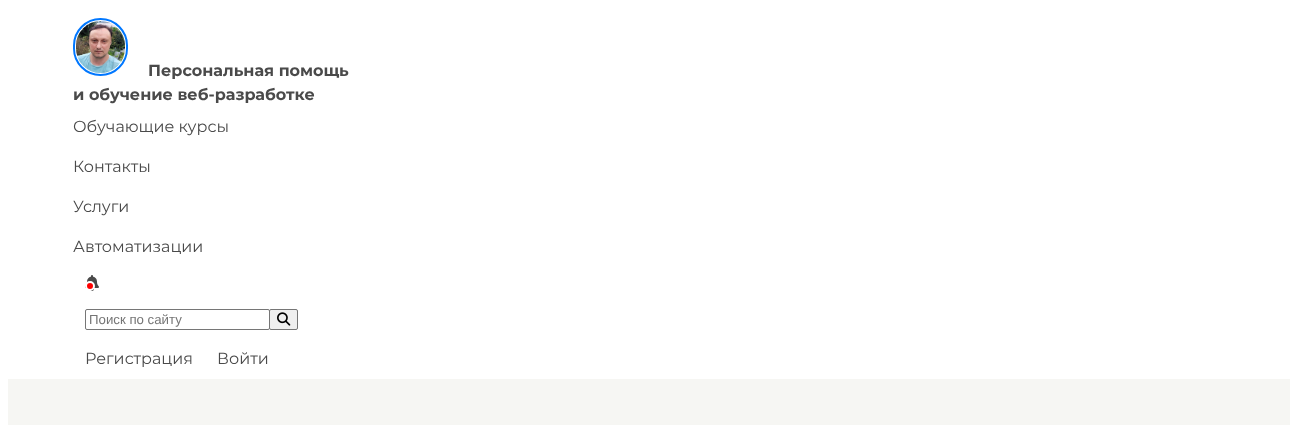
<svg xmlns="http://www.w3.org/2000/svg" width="1298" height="425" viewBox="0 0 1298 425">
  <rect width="100%" height="100%" fill="#ffffff"/>
  <rect x="74" y="19" width="53" height="56" rx="26.5" fill="none" stroke="#0077ff" stroke-width="2"/>
  <image x="76" y="21" width="49" height="52" href="img1.png"/>
  <text x="148" y="76" font-family="Montserrat" font-size="16" font-weight="bold" fill="#4a4a4a">Персональная помощь</text>
  <text x="73" y="100" font-family="Montserrat" font-size="16" font-weight="bold" fill="#4a4a4a">и обучение веб-разработке</text>
  <text x="73" y="132" font-family="Montserrat" font-size="16" fill="#4a4a4a">Обучающие курсы</text>
  <text x="73" y="172" font-family="Montserrat" font-size="16" fill="#4a4a4a">Контакты</text>
  <text x="73" y="212" font-family="Montserrat" font-size="16" fill="#4a4a4a">Услуги</text>
  <text x="73" y="252" font-family="Montserrat" font-size="16" fill="#4a4a4a">Автоматизации</text>
  <image x="85" y="275" width="14" height="16" href="img2.png"/>
  <circle cx="90" cy="286" r="4" fill="#ff0000" stroke="#ffffff" stroke-width="2"/>
  <rect x="85.5" y="309.5" width="184" height="20" rx="1.5" fill="none" stroke="#767676"/>
  <text x="89" y="324" font-family="Liberation Sans" font-size="13.25" fill="#757575">Поиск по сайту</text>
  <rect x="269.5" y="309.5" width="28" height="20" rx="1.5" fill="#efefef" stroke="#767676"/>
  <image x="277" y="312" width="14" height="14" href="img3.png"/>
  <text x="85" y="364" font-family="Montserrat" font-size="16" fill="#4a4a4a">Регистрация</text>
  <text x="217" y="364" font-family="Montserrat" font-size="16" fill="#4a4a4a">Войти</text>
  <rect x="8" y="379" width="1282" height="46" fill="#f6f6f3"/>
</svg>
